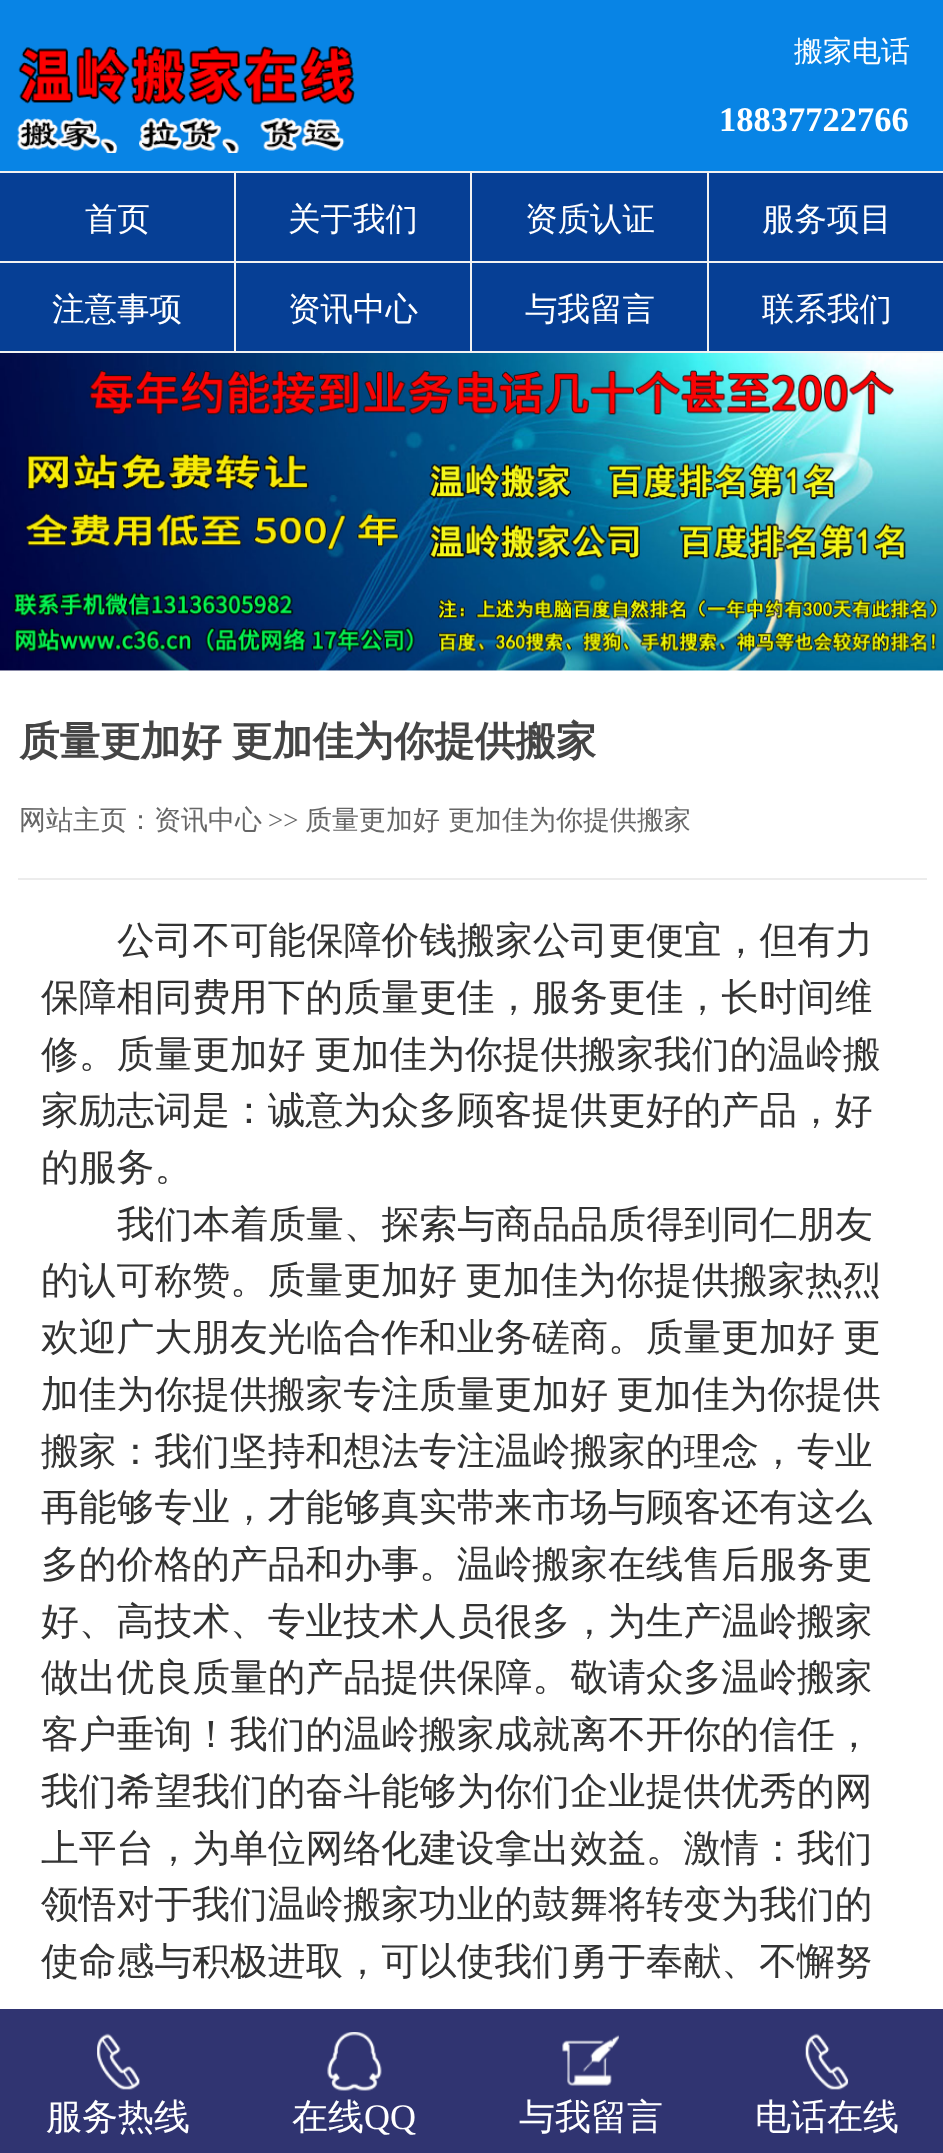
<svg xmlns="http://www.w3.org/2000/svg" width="943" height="2153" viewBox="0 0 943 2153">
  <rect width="100%" height="100%" fill="#ffffff"/>
  <rect x="0" y="0" width="943" height="171" fill="#0884e5"/>
  <image x="17" y="46" width="338" height="107" href="img1.png"/>
  <text x="794" y="61" font-family="WenQuanYi Zen Hei" font-size="29" font-weight="500" fill="#ffffff">搬家电话</text>
  <text x="719" y="131" font-family="Liberation Serif" font-size="34.5" font-weight="bold" fill="#ffffff">18837722766</text>
  <rect x="0" y="173" width="943" height="178" fill="#063f95"/>
  <rect x="0" y="171" width="943" height="2" fill="#f2f2f2"/>
  <rect x="234" y="173" width="2" height="180" fill="#f2f2f2"/>
  <rect x="0" y="261" width="236" height="2" fill="#f2f2f2"/>
  <text x="85" y="230" font-family="WenQuanYi Zen Hei" font-size="32.5" font-weight="500" fill="#ffffff">首页</text>
  <rect x="470" y="173" width="2" height="180" fill="#f2f2f2"/>
  <rect x="236" y="261" width="237" height="2" fill="#f2f2f2"/>
  <text x="288" y="230" font-family="WenQuanYi Zen Hei" font-size="32.5" font-weight="500" fill="#ffffff">关于我们</text>
  <rect x="707" y="173" width="2" height="180" fill="#f2f2f2"/>
  <rect x="473" y="261" width="470" height="2" fill="#f2f2f2"/>
  <text x="525" y="230" font-family="WenQuanYi Zen Hei" font-size="32.5" font-weight="500" fill="#ffffff">资质认证</text>
  <text x="762" y="230" font-family="WenQuanYi Zen Hei" font-size="32.5" font-weight="500" fill="#ffffff">服务项目</text>
  <rect x="0" y="351" width="943" height="2" fill="#f2f2f2"/>
  <text x="52" y="320" font-family="WenQuanYi Zen Hei" font-size="32.5" font-weight="500" fill="#ffffff">注意事项</text>
  <text x="288" y="320" font-family="WenQuanYi Zen Hei" font-size="32.5" font-weight="500" fill="#ffffff">资讯中心</text>
  <text x="525" y="320" font-family="WenQuanYi Zen Hei" font-size="32.5" font-weight="500" fill="#ffffff">与我留言</text>
  <text x="762" y="320" font-family="WenQuanYi Zen Hei" font-size="32.5" font-weight="500" fill="#ffffff">联系我们</text>
  <image x="0" y="353" width="943" height="318" href="img2.png"/>
  <rect x="18" y="878" width="909" height="2" fill="#ececec"/>
  <text x="19" y="755" word-spacing="-2" font-family="WenQuanYi Zen Hei" font-size="40.5" font-weight="bold" fill="#454545">质量更加好 更加佳为你提供搬家</text>
  <text x="19" y="829" font-family="WenQuanYi Zen Hei" font-size="27" font-weight="500" fill="#666666">网站主页：资讯中心</text>
  <text x="268" y="829" font-family="Liberation Serif" font-size="27" fill="#666666">&gt;&gt;</text>
  <text x="305" y="829" font-family="WenQuanYi Zen Hei" font-size="27" font-weight="500" fill="#666666">质量更加好 更加佳为你提供搬家</text>
  <text x="117" y="953" font-family="WenQuanYi Zen Hei" font-size="37.8" font-weight="500" fill="#333333">公司不可能保障价钱搬家公司更便宜，但有力</text>
  <text x="41" y="1010" font-family="WenQuanYi Zen Hei" font-size="37.8" font-weight="500" fill="#333333">保障相同费用下的质量更佳，服务更佳，长时间维</text>
  <text x="41" y="1067" word-spacing="-3" font-family="WenQuanYi Zen Hei" font-size="37.8" font-weight="500" fill="#333333">修。质量更加好 更加佳为你提供搬家我们的温岭搬</text>
  <text x="41" y="1123" font-family="WenQuanYi Zen Hei" font-size="37.8" font-weight="500" fill="#333333">家励志词是：诚意为众多顾客提供更好的产品，好</text>
  <text x="41" y="1180" font-family="WenQuanYi Zen Hei" font-size="37.8" font-weight="500" fill="#333333">的服务。</text>
  <text x="117" y="1237" font-family="WenQuanYi Zen Hei" font-size="37.8" font-weight="500" fill="#333333">我们本着质量、探索与商品品质得到同仁朋友</text>
  <text x="41" y="1293" word-spacing="-3" font-family="WenQuanYi Zen Hei" font-size="37.8" font-weight="500" fill="#333333">的认可称赞。质量更加好 更加佳为你提供搬家热烈</text>
  <text x="41" y="1350" word-spacing="-3" font-family="WenQuanYi Zen Hei" font-size="37.8" font-weight="500" fill="#333333">欢迎广大朋友光临合作和业务磋商。质量更加好 更</text>
  <text x="41" y="1407" word-spacing="-3" font-family="WenQuanYi Zen Hei" font-size="37.8" font-weight="500" fill="#333333">加佳为你提供搬家专注质量更加好 更加佳为你提供</text>
  <text x="41" y="1464" font-family="WenQuanYi Zen Hei" font-size="37.8" font-weight="500" fill="#333333">搬家：我们坚持和想法专注温岭搬家的理念，专业</text>
  <text x="41" y="1520" font-family="WenQuanYi Zen Hei" font-size="37.8" font-weight="500" fill="#333333">再能够专业，才能够真实带来市场与顾客还有这么</text>
  <text x="41" y="1577" font-family="WenQuanYi Zen Hei" font-size="37.8" font-weight="500" fill="#333333">多的价格的产品和办事。温岭搬家在线售后服务更</text>
  <text x="41" y="1634" font-family="WenQuanYi Zen Hei" font-size="37.8" font-weight="500" fill="#333333">好、高技术、专业技术人员很多，为生产温岭搬家</text>
  <text x="41" y="1690" font-family="WenQuanYi Zen Hei" font-size="37.8" font-weight="500" fill="#333333">做出优良质量的产品提供保障。敬请众多温岭搬家</text>
  <text x="41" y="1747" font-family="WenQuanYi Zen Hei" font-size="37.8" font-weight="500" fill="#333333">客户垂询！我们的温岭搬家成就离不开你的信任，</text>
  <text x="41" y="1804" font-family="WenQuanYi Zen Hei" font-size="37.8" font-weight="500" fill="#333333">我们希望我们的奋斗能够为你们企业提供优秀的网</text>
  <text x="41" y="1861" font-family="WenQuanYi Zen Hei" font-size="37.8" font-weight="500" fill="#333333">上平台，为单位网络化建设拿出效益。激情：我们</text>
  <text x="41" y="1917" font-family="WenQuanYi Zen Hei" font-size="37.8" font-weight="500" fill="#333333">领悟对于我们温岭搬家功业的鼓舞将转变为我们的</text>
  <text x="41" y="1974" font-family="WenQuanYi Zen Hei" font-size="37.8" font-weight="500" fill="#333333">使命感与积极进取，可以使我们勇于奉献、不懈努</text>
  <rect x="0" y="2009" width="943" height="144" fill="#0c1058" fill-opacity="0.85"/>
  <image x="97" y="2033" width="43" height="57" href="img3.png"/>
  <text x="46" y="2129" font-family="WenQuanYi Zen Hei" font-size="36" font-weight="500" fill="#ffffff">服务热线</text>
  <image x="327" y="2032" width="55" height="59" href="img4.png"/>
  <text x="292" y="2129" font-family="WenQuanYi Zen Hei" font-size="36" font-weight="500" fill="#ffffff">在线</text>
  <text x="364" y="2129" font-family="Liberation Serif" font-size="36" fill="#ffffff">QQ</text>
  <image x="562" y="2035" width="57" height="51" href="img5.png"/>
  <text x="519" y="2129" font-family="WenQuanYi Zen Hei" font-size="36" font-weight="500" fill="#ffffff">与我留言</text>
  <image x="805" y="2033" width="44" height="57" href="img6.png"/>
  <text x="755" y="2129" font-family="WenQuanYi Zen Hei" font-size="36" font-weight="500" fill="#ffffff">电话在线</text>
</svg>
